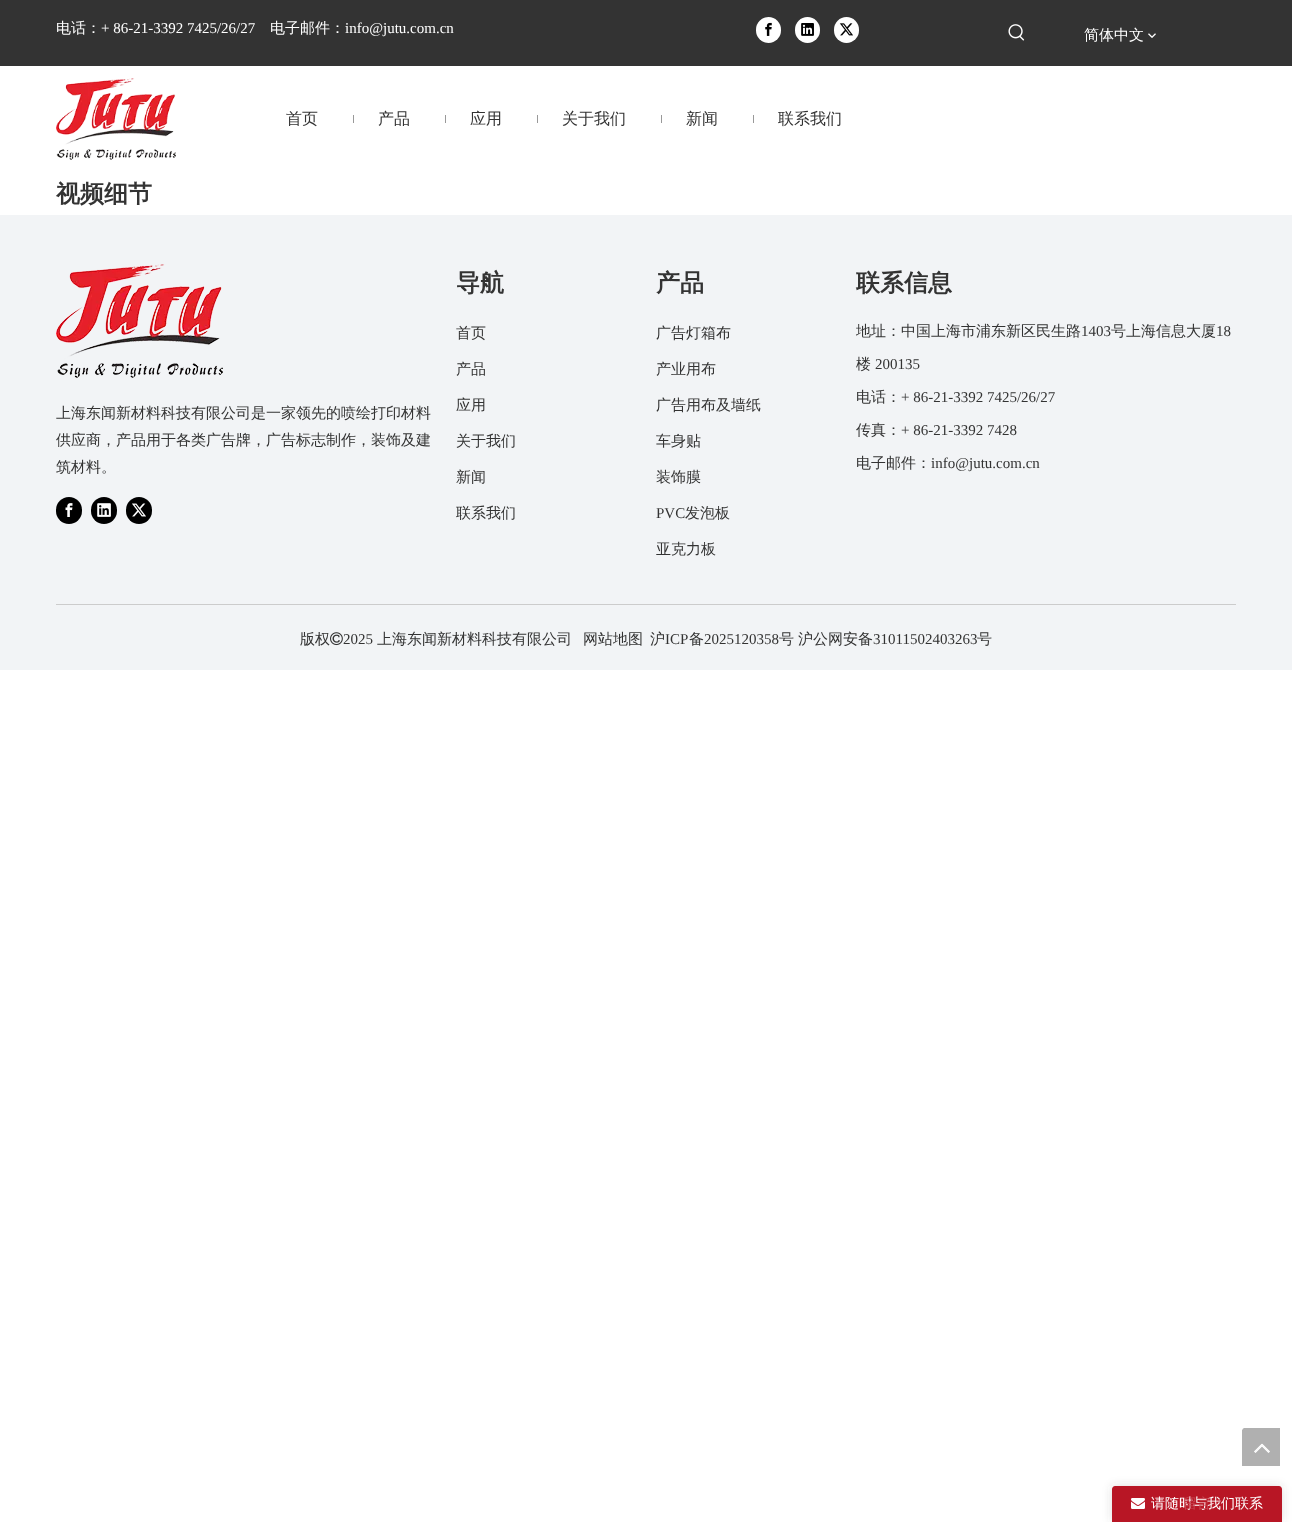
<svg xmlns="http://www.w3.org/2000/svg" width="1292" height="1522" viewBox="0 0 1292 1522">
  <defs>
    <filter id="blur1" x="-50%" y="-200%" width="200%" height="500%"><feGaussianBlur stdDeviation="5"/></filter>
  </defs>
  <rect width="100%" height="100%" fill="#ffffff"/>
  <rect x="0" y="0" width="1292" height="66" fill="#333333"/>
  <text x="56" y="33" font-family="WenQuanYi Zen Hei" font-size="15" font-weight="500" fill="#ffffff">电话：</text>
  <text x="101" y="33" font-family="Liberation Serif" font-size="15" fill="#ffffff">+ 86-21-3392 7425/26/27</text>
  <text x="270" y="33" font-family="WenQuanYi Zen Hei" font-size="15" font-weight="500" fill="#ffffff">电子邮件：</text>
  <text x="345" y="33" font-family="Liberation Serif" font-size="15" fill="#ffffff">info@jutu.com.cn</text>
  <rect x="756" y="17" width="25" height="26" rx="12.5" fill="#ffffff"/>
  <image x="765" y="22" width="7" height="14" href="img1.png"/>
  <rect x="795" y="17" width="25" height="26" rx="12.5" fill="#ffffff"/>
  <image x="801" y="23" width="13" height="13" href="img2.png"/>
  <rect x="834" y="17" width="25" height="26" rx="12.5" fill="#ffffff"/>
  <image x="839" y="23" width="14" height="13" href="img3.png"/>
  <image x="1008" y="24" width="17" height="17" href="img4.png"/>
  <text x="1084" y="40" font-family="WenQuanYi Zen Hei" font-size="15" font-weight="500" fill="#ffffff">简体中文</text>
  <image x="1148" y="33" width="8" height="5" href="img5.png"/>
  <image x="56" y="78" width="120" height="82" href="img6.png"/>
  <text x="286" y="124" font-family="WenQuanYi Zen Hei" font-size="16" font-weight="500" fill="#333333">首页</text>
  <rect x="353" y="115" width="1" height="8" fill="#999999"/>
  <text x="378" y="124" font-family="WenQuanYi Zen Hei" font-size="16" font-weight="500" fill="#333333">产品</text>
  <rect x="445" y="115" width="1" height="8" fill="#999999"/>
  <text x="470" y="124" font-family="WenQuanYi Zen Hei" font-size="16" font-weight="500" fill="#333333">应用</text>
  <rect x="537" y="115" width="1" height="8" fill="#999999"/>
  <text x="562" y="124" font-family="WenQuanYi Zen Hei" font-size="16" font-weight="500" fill="#333333">关于我们</text>
  <rect x="661" y="115" width="1" height="8" fill="#999999"/>
  <text x="686" y="124" font-family="WenQuanYi Zen Hei" font-size="16" font-weight="500" fill="#333333">新闻</text>
  <rect x="753" y="115" width="1" height="8" fill="#999999"/>
  <text x="778" y="124" font-family="WenQuanYi Zen Hei" font-size="16" font-weight="500" fill="#333333">联系我们</text>
  <text x="56" y="202" font-family="WenQuanYi Zen Hei" font-size="24" font-weight="bold" fill="#333333">视频细节</text>
  <rect x="0" y="215" width="1292" height="455" fill="#f2f4f6"/>
  <image x="56" y="264" width="167" height="114" href="img7.png"/>
  <text x="56" y="418" font-family="WenQuanYi Zen Hei" font-size="15" font-weight="500" fill="#333333">上海东闻新材料科技有限公司是一家领先的喷绘打印材料</text>
  <text x="56" y="445" font-family="WenQuanYi Zen Hei" font-size="15" font-weight="500" fill="#333333">供应商，产品用于各类广告牌，广告标志制作，装饰及建</text>
  <text x="56" y="472" font-family="WenQuanYi Zen Hei" font-size="15" font-weight="500" fill="#333333">筑材料。</text>
  <rect x="56" y="497" width="26" height="27" rx="13" fill="#000000"/>
  <image x="65" y="503" width="8" height="14" href="img8.png"/>
  <rect x="91" y="497" width="26" height="27" rx="13" fill="#000000"/>
  <image x="97" y="503" width="14" height="14" href="img9.png"/>
  <rect x="126" y="497" width="26" height="27" rx="13" fill="#000000"/>
  <image x="132" y="503" width="14" height="14" href="img10.png"/>
  <text x="456" y="291" font-family="WenQuanYi Zen Hei" font-size="24" font-weight="bold" fill="#333333">导航</text>
  <text x="456" y="338" font-family="WenQuanYi Zen Hei" font-size="15" font-weight="500" fill="#333333">首页</text>
  <text x="456" y="374" font-family="WenQuanYi Zen Hei" font-size="15" font-weight="500" fill="#333333">产品</text>
  <text x="456" y="410" font-family="WenQuanYi Zen Hei" font-size="15" font-weight="500" fill="#333333">应用</text>
  <text x="456" y="446" font-family="WenQuanYi Zen Hei" font-size="15" font-weight="500" fill="#333333">关于我们</text>
  <text x="456" y="482" font-family="WenQuanYi Zen Hei" font-size="15" font-weight="500" fill="#333333">新闻</text>
  <text x="456" y="518" font-family="WenQuanYi Zen Hei" font-size="15" font-weight="500" fill="#333333">联系我们</text>
  <text x="656" y="291" font-family="WenQuanYi Zen Hei" font-size="24" font-weight="bold" fill="#333333">产品</text>
  <text x="656" y="338" font-family="WenQuanYi Zen Hei" font-size="15" font-weight="500" fill="#333333">广告灯箱布</text>
  <text x="656" y="374" font-family="WenQuanYi Zen Hei" font-size="15" font-weight="500" fill="#333333">产业用布</text>
  <text x="656" y="410" font-family="WenQuanYi Zen Hei" font-size="15" font-weight="500" fill="#333333">广告用布及墙纸</text>
  <text x="656" y="446" font-family="WenQuanYi Zen Hei" font-size="15" font-weight="500" fill="#333333">车身贴</text>
  <text x="656" y="482" font-family="WenQuanYi Zen Hei" font-size="15" font-weight="500" fill="#333333">装饰膜</text>
  <text x="656" y="518" font-family="Liberation Serif" font-size="15" fill="#333333">PVC</text>
  <text x="685" y="518" font-family="WenQuanYi Zen Hei" font-size="15" font-weight="500" fill="#333333">发泡板</text>
  <text x="656" y="554" font-family="WenQuanYi Zen Hei" font-size="15" font-weight="500" fill="#333333">亚克力板</text>
  <text x="856" y="291" font-family="WenQuanYi Zen Hei" font-size="24" font-weight="bold" fill="#333333">联系信息</text>
  <text x="856" y="336" font-family="WenQuanYi Zen Hei" font-size="15" font-weight="500" fill="#333333">地址：中国上海市浦东新区民生路</text>
  <text x="1081" y="336" font-family="Liberation Serif" font-size="15" fill="#333333">1403</text>
  <text x="1111" y="336" font-family="WenQuanYi Zen Hei" font-size="15" font-weight="500" fill="#333333">号上海信息大厦</text>
  <text x="1216" y="336" font-family="Liberation Serif" font-size="15" fill="#333333">18</text>
  <text x="856" y="369" font-family="WenQuanYi Zen Hei" font-size="15" font-weight="500" fill="#333333">楼</text>
  <text x="875" y="369" font-family="Liberation Serif" font-size="15" fill="#333333">200135</text>
  <text x="856" y="402" font-family="WenQuanYi Zen Hei" font-size="15" font-weight="500" fill="#333333">电话：</text>
  <text x="901" y="402" font-family="Liberation Serif" font-size="15" fill="#333333">+ 86-21-3392 7425/26/27</text>
  <text x="856" y="435" font-family="WenQuanYi Zen Hei" font-size="15" font-weight="500" fill="#333333">传真：</text>
  <text x="901" y="435" font-family="Liberation Serif" font-size="15" fill="#333333">+ 86-21-3392 7428</text>
  <text x="856" y="468" font-family="WenQuanYi Zen Hei" font-size="15" font-weight="500" fill="#333333">电子邮件：</text>
  <text x="931" y="468" font-family="Liberation Serif" font-size="15" fill="#333333">info@jutu.com.cn</text>
  <rect x="56" y="604" width="1180" height="1" fill="#cccccc"/>
  <text x="300" y="644" font-family="WenQuanYi Zen Hei" font-size="15" font-weight="500" fill="#333333">版权</text>
  <image x="330" y="632" width="13" height="14" href="img11.png"/>
  <text x="343" y="644" font-family="Liberation Serif" font-size="15" fill="#333333">2025</text>
  <text x="377" y="644" font-family="WenQuanYi Zen Hei" font-size="15" font-weight="500" fill="#333333">上海东闻新材料科技有限公司</text>
  <text x="583" y="644" font-family="WenQuanYi Zen Hei" font-size="15" font-weight="500" fill="#333333">网站地图</text>
  <text x="650" y="644" font-family="WenQuanYi Zen Hei" font-size="15" font-weight="500" fill="#333333">沪</text>
  <text x="665" y="644" font-family="Liberation Serif" font-size="15" fill="#333333">ICP</text>
  <text x="689" y="644" font-family="WenQuanYi Zen Hei" font-size="15" font-weight="500" fill="#333333">备</text>
  <text x="704" y="644" font-family="Liberation Serif" font-size="15" fill="#333333">2025120358</text>
  <text x="779" y="644" font-family="WenQuanYi Zen Hei" font-size="15" font-weight="500" fill="#333333">号</text>
  <text x="798" y="644" font-family="WenQuanYi Zen Hei" font-size="15" font-weight="500" fill="#333333">沪公网安备</text>
  <text x="873" y="644" font-family="Liberation Serif" font-size="15" fill="#333333">31011502403263</text>
  <text x="977" y="644" font-family="WenQuanYi Zen Hei" font-size="15" font-weight="500" fill="#333333">号</text>
  <rect x="1112" y="1486" width="170" height="36" rx="3" fill="#444444" fill-opacity="0.18" filter="url(#blur1)"/>
  <path d="M1115 1486H1279C1280.5 1486 1282 1487.5 1282 1489V1522H1112V1489C1112 1487.5 1113.5 1486 1115 1486Z" fill="#b81625"/>
  <text x="1151" y="1508" font-family="WenQuanYi Zen Hei" font-size="14" font-weight="500" fill="#ffffff">请随时与我们联系</text>
  <image x="1131" y="1498" width="14" height="11" href="img12.png"/>
  <text x="1183" y="1508" font-family="WenQuanYi Zen Hei" font-size="14" font-weight="500" fill="#c64551">留言</text>
  <image x="1242" y="1428" width="38" height="38" href="img13.png"/>
</svg>
